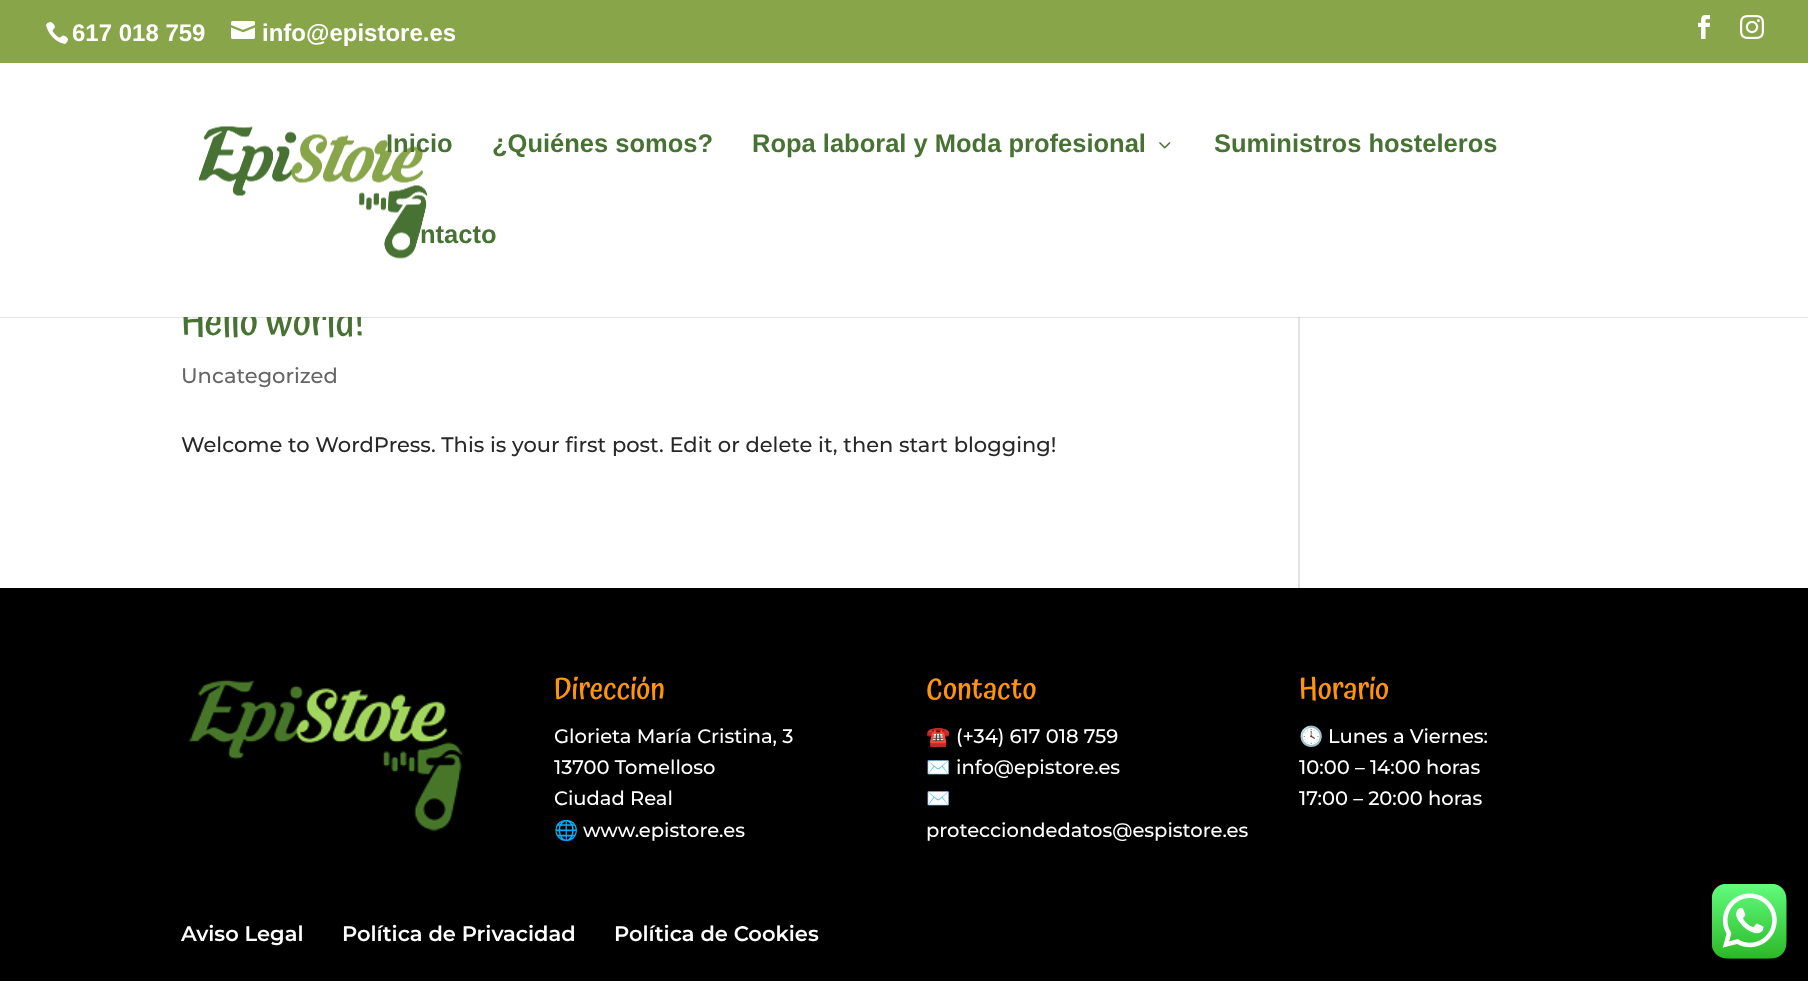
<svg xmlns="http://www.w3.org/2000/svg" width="1808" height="981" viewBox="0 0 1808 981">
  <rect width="100%" height="100%" fill="#ffffff"/>
  <rect x="0" y="0" width="1808" height="63" fill="#89a54a"/>
  <image x="46" y="22" width="22" height="22" href="img1.png"/>
  <text x="72" y="41" font-family="Liberation Sans" font-size="24" font-weight="bold" fill="#ffffff">617 018 759</text>
  <image x="231" y="21" width="24" height="18" href="img2.png"/>
  <text x="262" y="41" font-family="Liberation Sans" font-size="24" font-weight="bold" fill="#ffffff">info@epistore.es</text>
  <image x="1698" y="15" width="13" height="24" href="img3.png"/>
  <image x="1740" y="15" width="24" height="24" href="img4.png"/>
  <rect x="1298" y="317" width="2" height="271" fill="#e2e2e2"/>
  <rect x="0" y="317" width="1808" height="1" fill="#000000" fill-opacity="0.1"/>
  <text x="181" y="335" font-family="Atma" font-size="39" font-weight="500" fill="#487234">Hello world!</text>
  <rect x="183" y="306" width="179" height="11" fill="#ffffff"/>
  <image x="198" y="125" width="229" height="134" href="img5.png"/>
  <text x="386" y="152" font-family="Liberation Sans" font-size="25.5" font-weight="bold" fill="#487234">Inicio</text>
  <text x="492" y="152" font-family="Liberation Sans" font-size="25.5" font-weight="bold" fill="#487234">¿Quiénes somos?</text>
  <text x="752" y="152" font-family="Liberation Sans" font-size="25.5" font-weight="bold" fill="#487234">Ropa laboral y Moda profesional</text>
  <image x="1159" y="142" width="12" height="7" href="img6.png"/>
  <text x="1214" y="152" font-family="Liberation Sans" font-size="25.5" font-weight="bold" fill="#487234">Suministros hosteleros</text>
  <text x="420" y="243" font-family="Liberation Sans" font-size="25.5" font-weight="bold" fill="#487234">ntacto</text>
  <text x="181" y="383" font-family="Montserrat" font-size="21" font-weight="500" fill="#666666">Uncategorized</text>
  <text x="181" y="452" font-family="Montserrat" font-size="21" font-weight="500" fill="#282828">Welcome to WordPress. This is your first post. Edit or delete it, then start blogging!</text>
  <rect x="0" y="588" width="1808" height="393" fill="#000000"/>
  <image x="188" y="679" width="275" height="153" href="img7.png"/>
  <text x="554" y="699" font-family="Atma" font-size="30" font-weight="500" fill="#ff940a">Dirección</text>
  <text x="554" y="743" font-family="Montserrat" font-size="19.5" font-weight="500" fill="#ffffff">Glorieta María Cristina, 3</text>
  <text x="554" y="774" font-family="Montserrat" font-size="19.5" font-weight="500" fill="#ffffff">13700 Tomelloso</text>
  <text x="554" y="805" font-family="Montserrat" font-size="19.5" font-weight="500" fill="#ffffff">Ciudad Real</text>
  <text x="554" y="837" font-family="Noto Color Emoji" font-size="19.5" fill="#ffffff">🌐</text>
  <text x="583" y="837" font-family="Montserrat" font-size="19.5" font-weight="500" fill="#ffffff">www.epistore.es</text>
  <text x="926" y="699" font-family="Atma" font-size="30" font-weight="500" fill="#ff940a">Contacto</text>
  <text x="926" y="743" font-family="Noto Color Emoji" font-size="19.5" fill="#ffffff">☎️</text>
  <text x="956" y="743" font-family="Montserrat" font-size="19.5" font-weight="500" fill="#ffffff">(+34) 617 018 759</text>
  <text x="926" y="774" font-family="Noto Color Emoji" font-size="19.5" fill="#ffffff">✉️</text>
  <text x="956" y="774" font-family="Montserrat" font-size="19.5" font-weight="500" fill="#ffffff">info@epistore.es</text>
  <text x="926" y="805" font-family="Noto Color Emoji" font-size="19.5" fill="#ffffff">✉️</text>
  <text x="926" y="837" font-family="Montserrat" font-size="19.5" font-weight="500" fill="#ffffff">protecciondedatos@espistore.es</text>
  <text x="1299" y="699" font-family="Atma" font-size="30" font-weight="500" fill="#ff940a">Horario</text>
  <text x="1299" y="743" font-family="Noto Color Emoji" font-size="19.5" fill="#ffffff">🕓</text>
  <text x="1328" y="743" font-family="Montserrat" font-size="19.5" font-weight="500" fill="#ffffff">Lunes a Viernes:</text>
  <text x="1299" y="774" font-family="Montserrat" font-size="19.5" font-weight="500" fill="#ffffff">10:00 – 14:00 horas</text>
  <text x="1299" y="805" font-family="Montserrat" font-size="19.5" font-weight="500" fill="#ffffff">17:00 – 20:00 horas</text>
  <text x="181" y="941" font-family="Montserrat" font-size="21" font-weight="600" fill="#ffffff">Aviso Legal</text>
  <text x="342" y="941" font-family="Montserrat" font-size="21" font-weight="600" fill="#ffffff">Política de Privacidad</text>
  <text x="614" y="941" font-family="Montserrat" font-size="21" font-weight="600" fill="#ffffff">Política de Cookies</text>
  <image x="1712" y="884" width="75" height="75" href="img8.png"/>
</svg>
